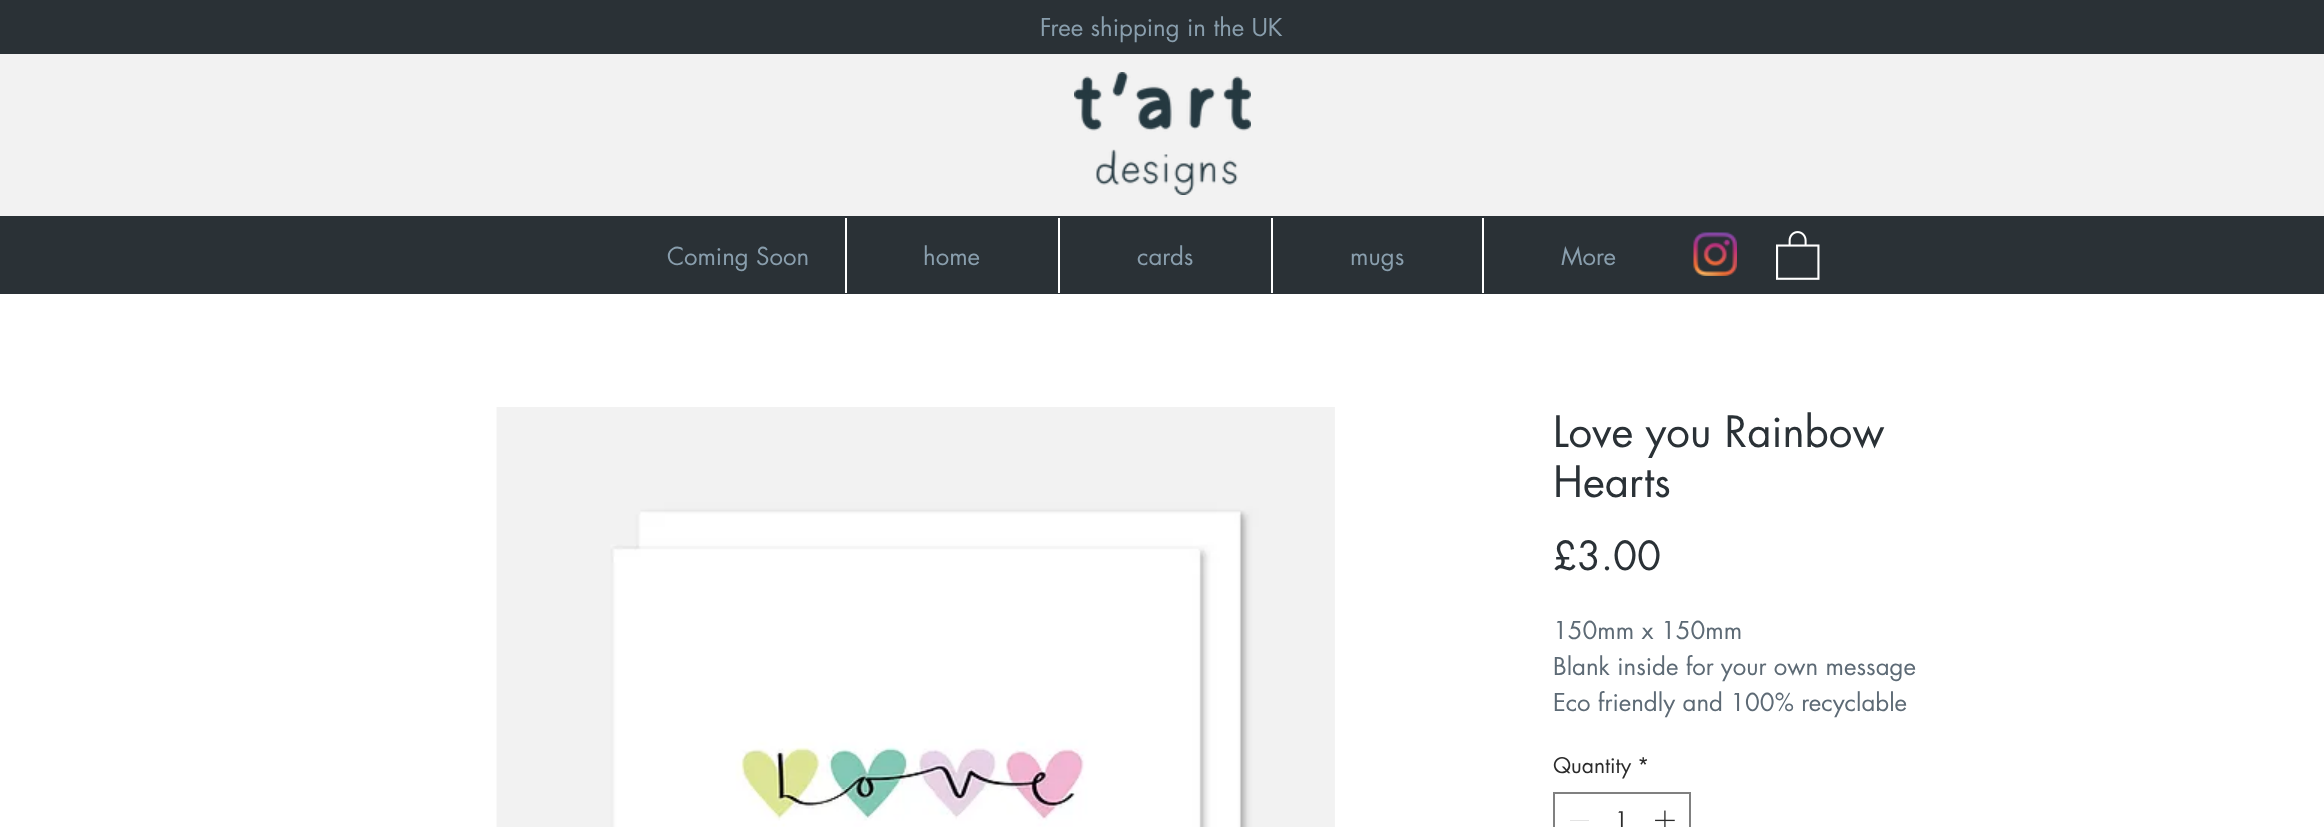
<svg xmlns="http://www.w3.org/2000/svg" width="2324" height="827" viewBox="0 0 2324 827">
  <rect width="100%" height="100%" fill="#ffffff"/>
  <rect x="0" y="0" width="2324" height="54" fill="#2a3136"/>
  <text x="1040" y="36" font-family="futura" font-size="24" fill="#899ead">Free shipping in the UK</text>
  <rect x="0" y="54" width="2324" height="162" fill="#f2f2f2"/>
  <image x="1074" y="72" width="177" height="123" href="img1.png"/>
  <rect x="0" y="216" width="2324" height="78" fill="#2a3136"/>
  <text x="667" y="265" font-family="futura" font-size="24" fill="#899ead">Coming Soon</text>
  <rect x="845" y="218" width="2" height="75" fill="#ffffff"/>
  <text x="923" y="265" font-family="futura" font-size="24" fill="#899ead">home</text>
  <rect x="1058" y="218" width="2" height="75" fill="#ffffff"/>
  <text x="1137" y="265" font-family="futura" font-size="24" fill="#899ead">cards</text>
  <rect x="1271" y="218" width="2" height="75" fill="#ffffff"/>
  <text x="1350" y="265" font-family="futura" font-size="24" fill="#899ead">mugs</text>
  <rect x="1482" y="218" width="2" height="75" fill="#ffffff"/>
  <text x="1561" y="265" font-family="futura" font-size="24" fill="#899ead">More</text>
  <image x="1693" y="232" width="44" height="44" href="img2.png"/>
  <image x="1776" y="231" width="44" height="49" href="img3.png"/>
  <image x="496" y="407" width="839" height="420" href="img4.png"/>
  <text x="1553" y="447" font-family="futura" font-size="42" fill="#2a3136">Love you Rainbow</text>
  <text x="1553" y="497" font-family="futura" font-size="42" fill="#2a3136">Hearts</text>
  <text x="1553" y="570" font-family="futura" font-size="39" fill="#2a3136">£3.00</text>
  <text x="1553" y="639" font-family="futura" font-size="24" fill="#5d6a75">150mm x 150mm</text>
  <text x="1553" y="675" font-family="futura" font-size="24" fill="#5d6a75">Blank inside for your own message</text>
  <text x="1553" y="711" font-family="futura" font-size="24" fill="#5d6a75">Eco friendly and 100% recyclable</text>
  <text x="1553" y="773" font-family="futura" font-size="21" fill="#2b2b2b">Quantity</text>
  <text x="1637" y="773" font-family="futura" font-size="21" fill="#2b2b2b">*</text>
  <rect x="1554" y="793" width="136" height="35" fill="none" stroke="#808080" stroke-width="2"/>
  <rect x="1570" y="820" width="19" height="1" fill="#e3e3e3"/>
  <text x="1615" y="827" font-family="futura" font-size="21" fill="#2b2b2b">1</text>
  <image x="1655" y="810" width="20" height="17" href="img5.png"/>
</svg>
